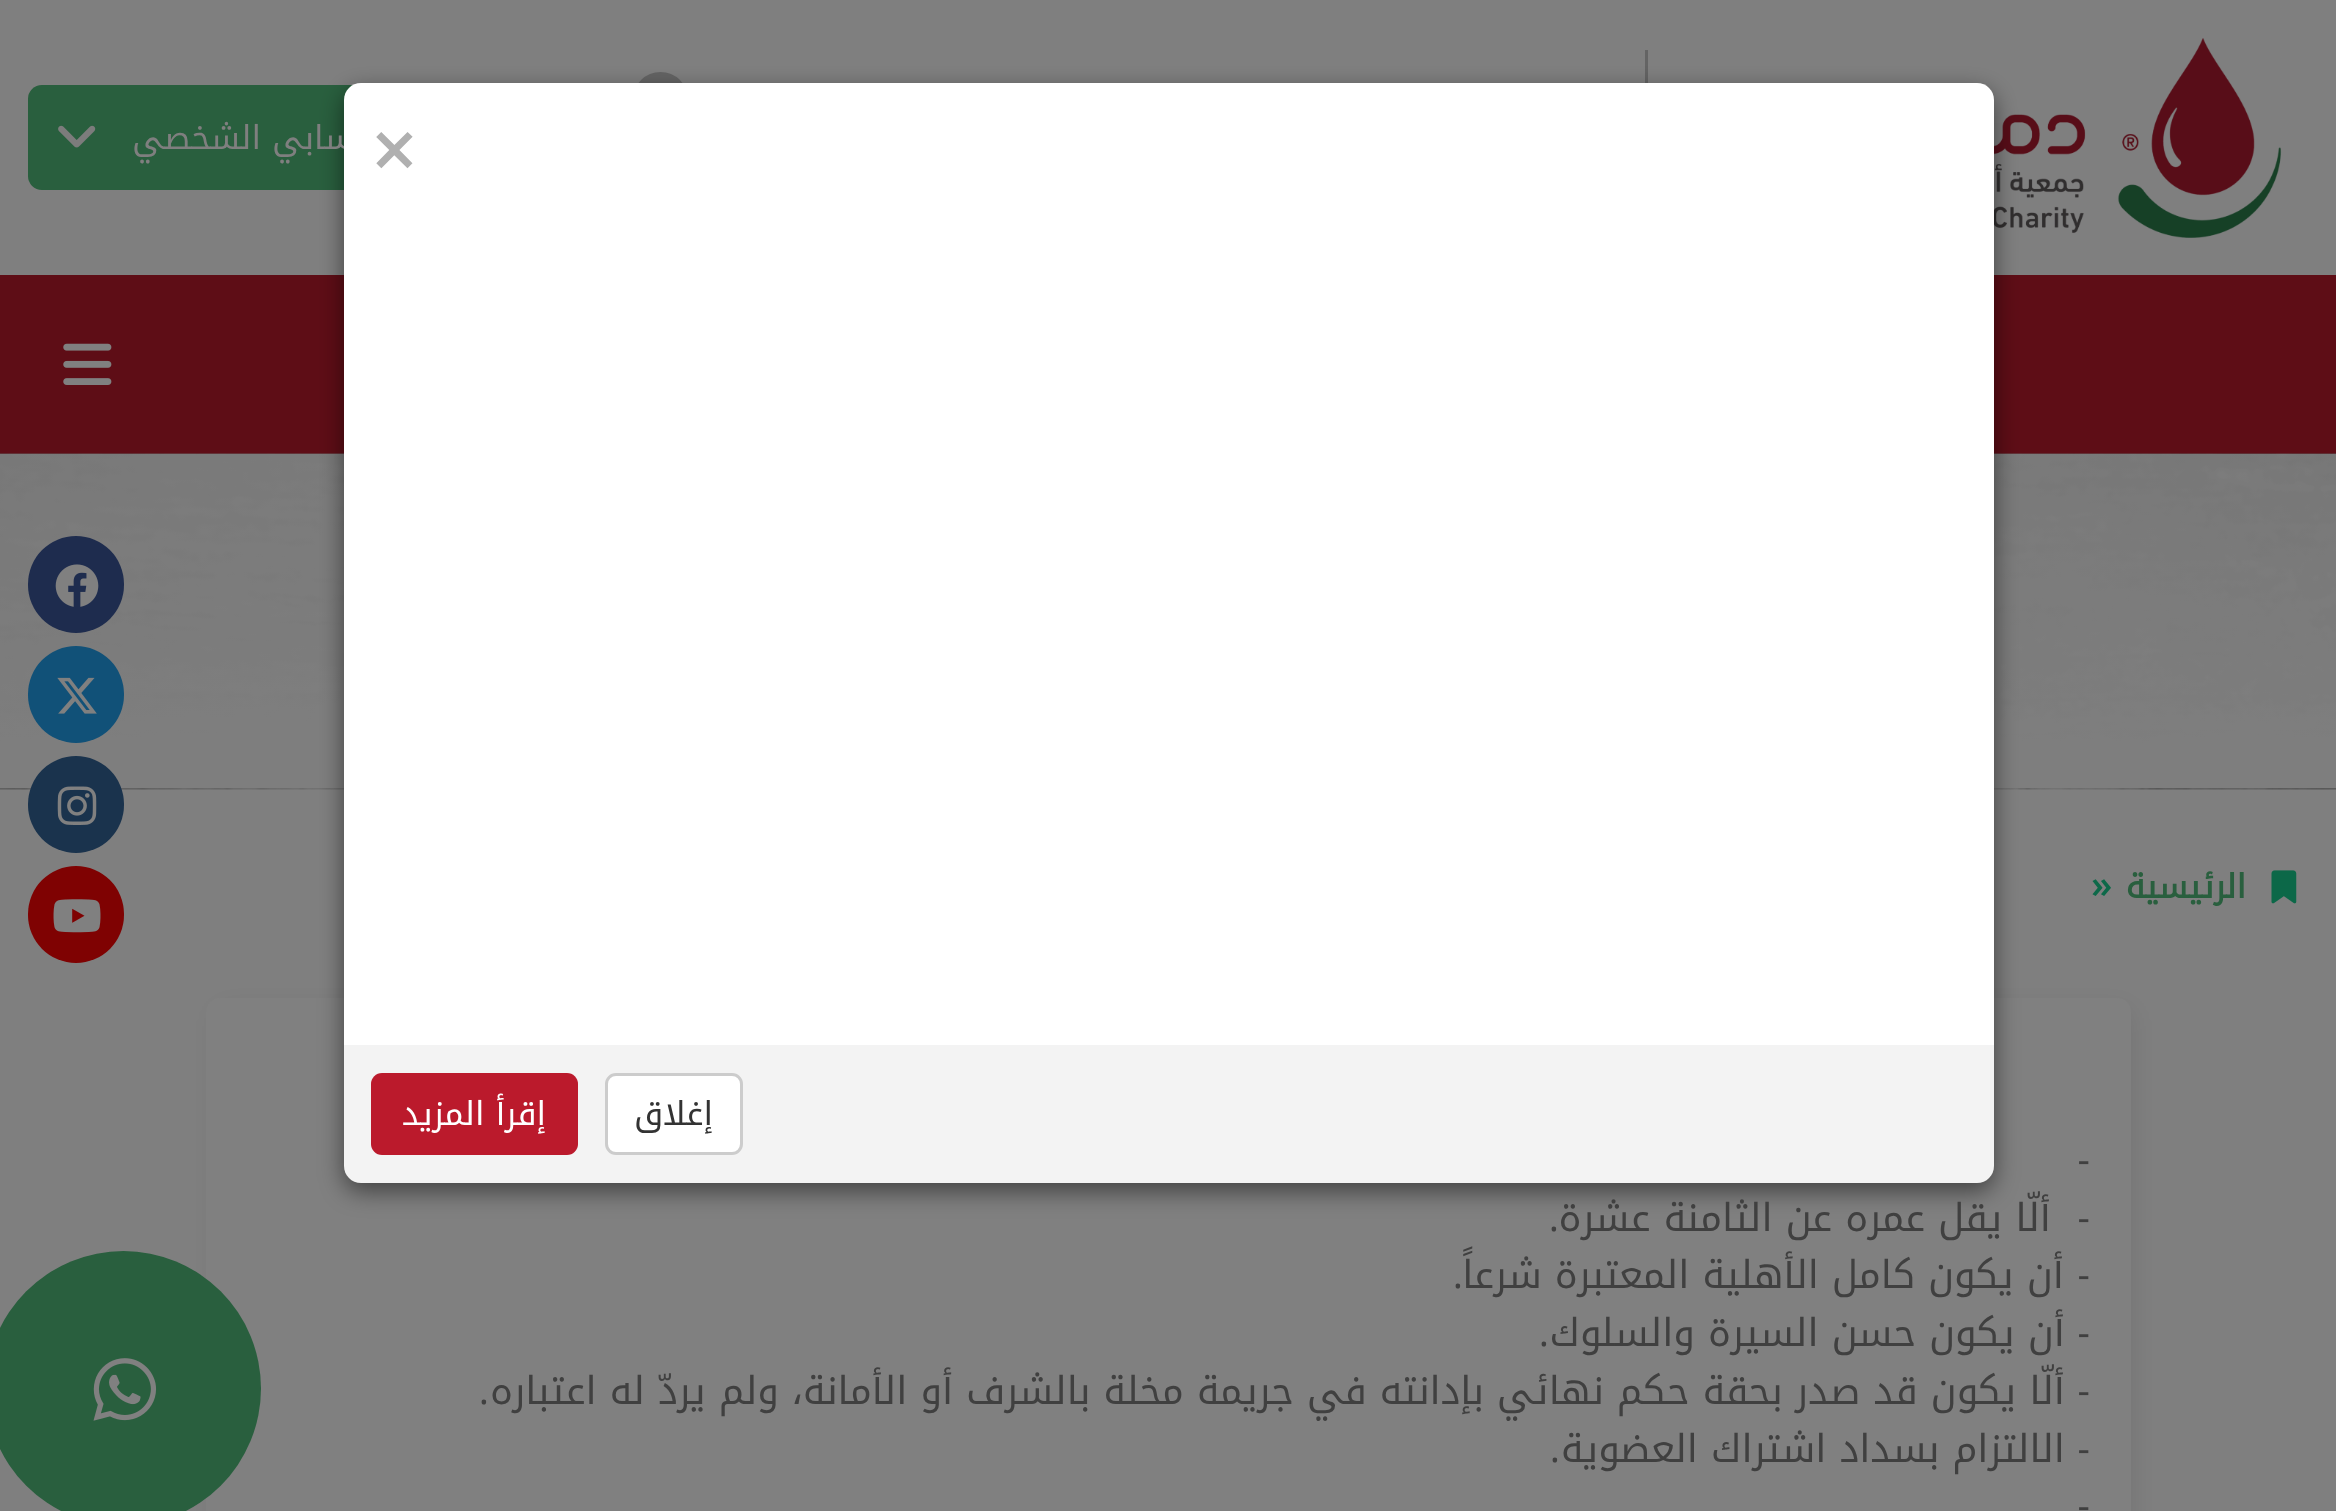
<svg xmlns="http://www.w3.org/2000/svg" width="2336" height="1511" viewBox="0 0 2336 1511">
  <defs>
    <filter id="blur1" x="-50%" y="-200%" width="200%" height="500%"><feGaussianBlur stdDeviation="14"/></filter>
    <filter id="blur2" x="-50%" y="-200%" width="200%" height="500%"><feGaussianBlur stdDeviation="12.5"/></filter>
  </defs>
  <rect width="100%" height="100%" fill="#7f7f7f"/>
  <image x="1994" y="38" width="288" height="200" href="img1.png"/>
  <rect x="1645" y="50" width="3" height="33" fill="#646464"/>
  <circle cx="660.5" cy="99.5" r="27.5" fill="#646464"/>
  <rect x="28" y="85" width="440" height="105" rx="14" fill="#295f3e"/>
  <rect x="0" y="275" width="2336" height="179" fill="#5e0d16"/>
  <image x="0" y="453" width="2336" height="337" href="img4.png"/>
  <rect x="217" y="1009" width="1914" height="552" rx="8" fill="#000000" fill-opacity="0.1" filter="url(#blur1)"/>
  <rect x="206" y="998" width="1925" height="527" rx="14" fill="#808080"/>
  <rect x="344" y="91" width="1650" height="1100" rx="17" fill="#000000" fill-opacity="0.5" filter="url(#blur2)"/>
  <text x="374" y="149" font-family="Noto Kufi Arabic" font-size="33" direction="rtl" fill="#7f7f7f">حسابي الشخصي</text>
  <path d="M361 83H1977C1986.5 83 1994 90.5 1994 100V1045H344V100C344 90.5 351.5 83 361 83Z" fill="#ffffff"/>
  <text x="371" y="179" font-family="Open Sans" font-size="82" font-weight="600" fill="#b0b0b0">×</text>
  <path d="M344 1045H1994V1166C1994 1175.5 1986.5 1183 1977 1183H361C351.5 1183 344 1175.5 344 1166Z" fill="#f3f3f3"/>
  <rect x="606.5" y="1074.5" width="135" height="79" rx="9.5" fill="#ffffff" stroke="#cccccc" stroke-width="3"/>
  <text x="713" y="1125" font-family="Noto Kufi Arabic" font-size="33" direction="rtl" fill="#333333">إغلاق</text>
  <rect x="371" y="1073" width="207" height="82" rx="11" fill="#bb1a2c"/>
  <text x="546" y="1125" font-family="Noto Kufi Arabic" font-size="33" direction="rtl" fill="#ffffff">إقرأ المزيد</text>
  <image x="58" y="125" width="38" height="23" href="img2.png"/>
  <image x="63" y="343" width="49" height="42" href="img3.png"/>
  <image x="2271" y="870" width="26" height="34" href="img5.png"/>
  <text x="2246" y="898" font-family="Noto Kufi Arabic" font-size="33" font-weight="bold" direction="rtl" fill="#295f3e">الرئيسية</text>
  <text x="2091" y="898" font-family="Open Sans" font-size="38.5" font-weight="600" fill="#0d6949">»</text>
  <rect x="28" y="536" width="96" height="97" rx="48" fill="#1e2c4e"/>
  <image x="55" y="564" width="44" height="43" href="img6.png"/>
  <rect x="28" y="646" width="96" height="97" rx="48" fill="#115178"/>
  <image x="57" y="677" width="40" height="37" href="img7.png"/>
  <rect x="28" y="756" width="96" height="97" rx="48" fill="#1a334d"/>
  <image x="57" y="786" width="40" height="39" href="img8.png"/>
  <rect x="28" y="866" width="96" height="97" rx="48" fill="#7f0202"/>
  <image x="53" y="899" width="48" height="34" href="img9.png"/>
  <text x="2090" y="1173" font-family="Open Sans" font-size="38.5" direction="rtl" fill="#404040">-</text>
  <text x="2090" y="1231" font-family="Open Sans" font-size="38.5" direction="rtl" fill="#404040">-</text>
  <text x="2051" y="1231" font-family="Noto Kufi Arabic" font-size="38.5" direction="rtl" fill="#404040">ألّا يقل عمره عن الثامنة عشرة</text>
  <text x="1559" y="1231" font-family="Open Sans" font-size="38.5" direction="rtl" fill="#404040">.</text>
  <text x="2090" y="1288" font-family="Open Sans" font-size="38.5" direction="rtl" fill="#404040">-</text>
  <text x="2064" y="1288" font-family="Noto Kufi Arabic" font-size="38.5" direction="rtl" fill="#404040">أن يكون كامل الأهلية المعتبرة شرعاً</text>
  <text x="1463" y="1288" font-family="Open Sans" font-size="38.5" direction="rtl" fill="#404040">.</text>
  <text x="2090" y="1346" font-family="Open Sans" font-size="38.5" direction="rtl" fill="#404040">-</text>
  <text x="2065" y="1346" font-family="Noto Kufi Arabic" font-size="38.5" direction="rtl" fill="#404040">أن يكون حسن السيرة والسلوك</text>
  <text x="1549" y="1346" font-family="Open Sans" font-size="38.5" direction="rtl" fill="#404040">.</text>
  <text x="2090" y="1404" font-family="Open Sans" font-size="38.5" direction="rtl" fill="#404040">-</text>
  <text x="2065" y="1404" font-family="Noto Kufi Arabic" font-size="38.5" direction="rtl" fill="#404040">ألّا يكون قد صدر بحقة حكم نهائي بإدانته في جريمة مخلة بالشرف أو الأمانة، ولم يردّ له اعتباره</text>
  <text x="489" y="1404" font-family="Open Sans" font-size="38.5" direction="rtl" fill="#404040">.</text>
  <text x="2090" y="1462" font-family="Open Sans" font-size="38.5" direction="rtl" fill="#404040">-</text>
  <text x="2065" y="1462" font-family="Noto Kufi Arabic" font-size="38.5" direction="rtl" fill="#404040">الالتزام بسداد اشتراك العضوية</text>
  <text x="1560" y="1462" font-family="Open Sans" font-size="38.5" direction="rtl" fill="#404040">.</text>
  <text x="2090" y="1519" font-family="Open Sans" font-size="38.5" direction="rtl" fill="#404040">-</text>
  <circle cx="123.5" cy="1388.5" r="137.5" fill="#295f3e"/>
  <image x="93" y="1358" width="64" height="63" href="img10.png"/>
</svg>
